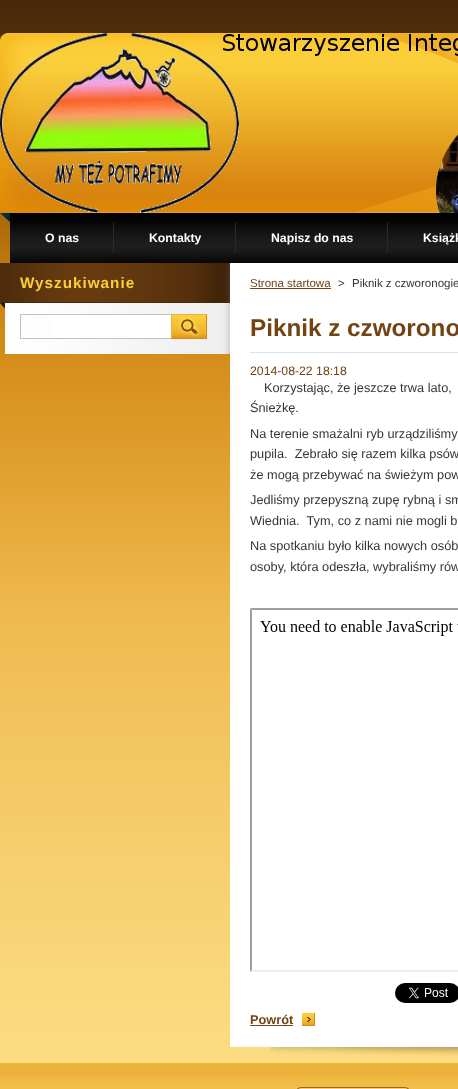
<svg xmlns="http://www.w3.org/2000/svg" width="458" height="1089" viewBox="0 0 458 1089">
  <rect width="100%" height="100%" fill="#ffffff"/>
  <image x="0" y="0" width="458" height="1063" href="img1.png"/>
  <image x="0" y="33" width="458" height="180" href="img2.png"/>
  <image x="0" y="213" width="458" height="50" href="img3.png"/>
  <rect x="113" y="223" width="1" height="30" fill="#2a2a2a"/>
  <text x="45" y="242" font-family="Liberation Sans" font-size="12.25" font-weight="bold" fill="#ffffff">O nas</text>
  <rect x="235" y="223" width="1" height="30" fill="#2a2a2a"/>
  <text x="149" y="242" font-family="Liberation Sans" font-size="12.25" font-weight="bold" fill="#ffffff">Kontakty</text>
  <rect x="387" y="223" width="1" height="30" fill="#2a2a2a"/>
  <text x="271" y="242" font-family="Liberation Sans" font-size="12.25" font-weight="bold" fill="#ffffff">Napisz do nas</text>
  <text x="423" y="242" font-family="Liberation Sans" font-size="12.25" font-weight="bold" fill="#ffffff">Książk</text>
  <image x="5" y="309" width="225" height="45" href="img4.png"/>
  <image x="0" y="263" width="230" height="46" href="img5.png"/>
  <text x="20" y="288" font-family="Liberation Sans" font-size="15.25" font-weight="bold" letter-spacing="1" fill="#fbcf3c">Wyszukiwanie</text>
  <rect x="51" y="315" width="120" height="23" fill="#ffffff"/>
  <rect x="20.5" y="314.5" width="151" height="24" fill="none" stroke="#c1c1c1"/>
  <image x="171" y="314" width="36" height="25" href="img6.png"/>
  <image x="270" y="1047" width="188" height="9" href="img7.png"/>
  <rect x="230" y="263" width="228" height="784" fill="#ffffff"/>
  <text x="250" y="287" font-family="Liberation Sans" font-size="11.5" fill="#734314">Strona startowa</text>
  <rect x="250" y="288" width="81" height="1" fill="#734314"/>
  <text x="338" y="287" font-family="Liberation Sans" font-size="11.5" fill="#363636">&gt;</text>
  <text x="352" y="287" font-family="Liberation Sans" font-size="11.5" fill="#363636">Piknik z czworonogie</text>
  <rect x="250" y="352" width="208" height="1" fill="#e1e1e1"/>
  <text x="250" y="336" font-family="Liberation Sans" font-size="24.25" font-weight="bold" fill="#734314">Piknik z czworono</text>
  <text x="250" y="375" font-family="Liberation Sans" font-size="12.25" fill="#734314">2014-08-22 18:18</text>
  <text x="264" y="392" font-family="Liberation Sans" font-size="12.75" fill="#363636">Korzystając, że jeszcze trwa lato,</text>
  <text x="250" y="412" font-family="Liberation Sans" font-size="12.75" fill="#363636">Śnieżkę.</text>
  <text x="250" y="438" font-family="Liberation Sans" font-size="12.75" fill="#363636">Na terenie smażalni ryb urządziliśmy</text>
  <text x="250" y="458" font-family="Liberation Sans" font-size="12.75" fill="#363636" xml:space="preserve">pupila.  Zebrało się razem kilka psów</text>
  <text x="250" y="479" font-family="Liberation Sans" font-size="12.75" fill="#363636">że mogą przebywać na świeżym pow</text>
  <text x="250" y="504" font-family="Liberation Sans" font-size="12.75" fill="#363636">Jedliśmy przepyszną zupę rybną i sm</text>
  <text x="250" y="525" font-family="Liberation Sans" font-size="12.75" fill="#363636" xml:space="preserve">Wiednia.  Tym, co z nami nie mogli b</text>
  <text x="250" y="550" font-family="Liberation Sans" font-size="12.75" fill="#363636">Na spotkaniu było kilka nowych osób</text>
  <text x="250" y="571" font-family="Liberation Sans" font-size="12.75" fill="#363636">osoby, która odeszła, wybraliśmy rów</text>
  <path d="M250 608H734L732 610H252Z" fill="#9f9f9f"/>
  <path d="M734 972H250L252 970H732Z" fill="#eeeeee"/>
  <path d="M250 972V608L252 610V970Z" fill="#9f9f9f"/>
  <image x="260" y="620" width="198" height="16" href="img8.png"/>
  <image x="395" y="983" width="63" height="20" href="img9.png"/>
  <image x="302" y="1013" width="13" height="13" href="img10.png"/>
  <text x="250" y="1024" font-family="Liberation Sans" font-size="12.75" font-weight="bold" fill="#734314">Powrót</text>
  <rect x="250" y="1025" width="43" height="1" fill="#734314"/>
  <rect x="0" y="1063" width="458" height="13" fill="#edb23c"/>
  <image x="0" y="1076" width="458" height="13" href="img11.png"/>
  <image x="297" y="1087" width="112" height="2" href="img12.png"/>
</svg>
